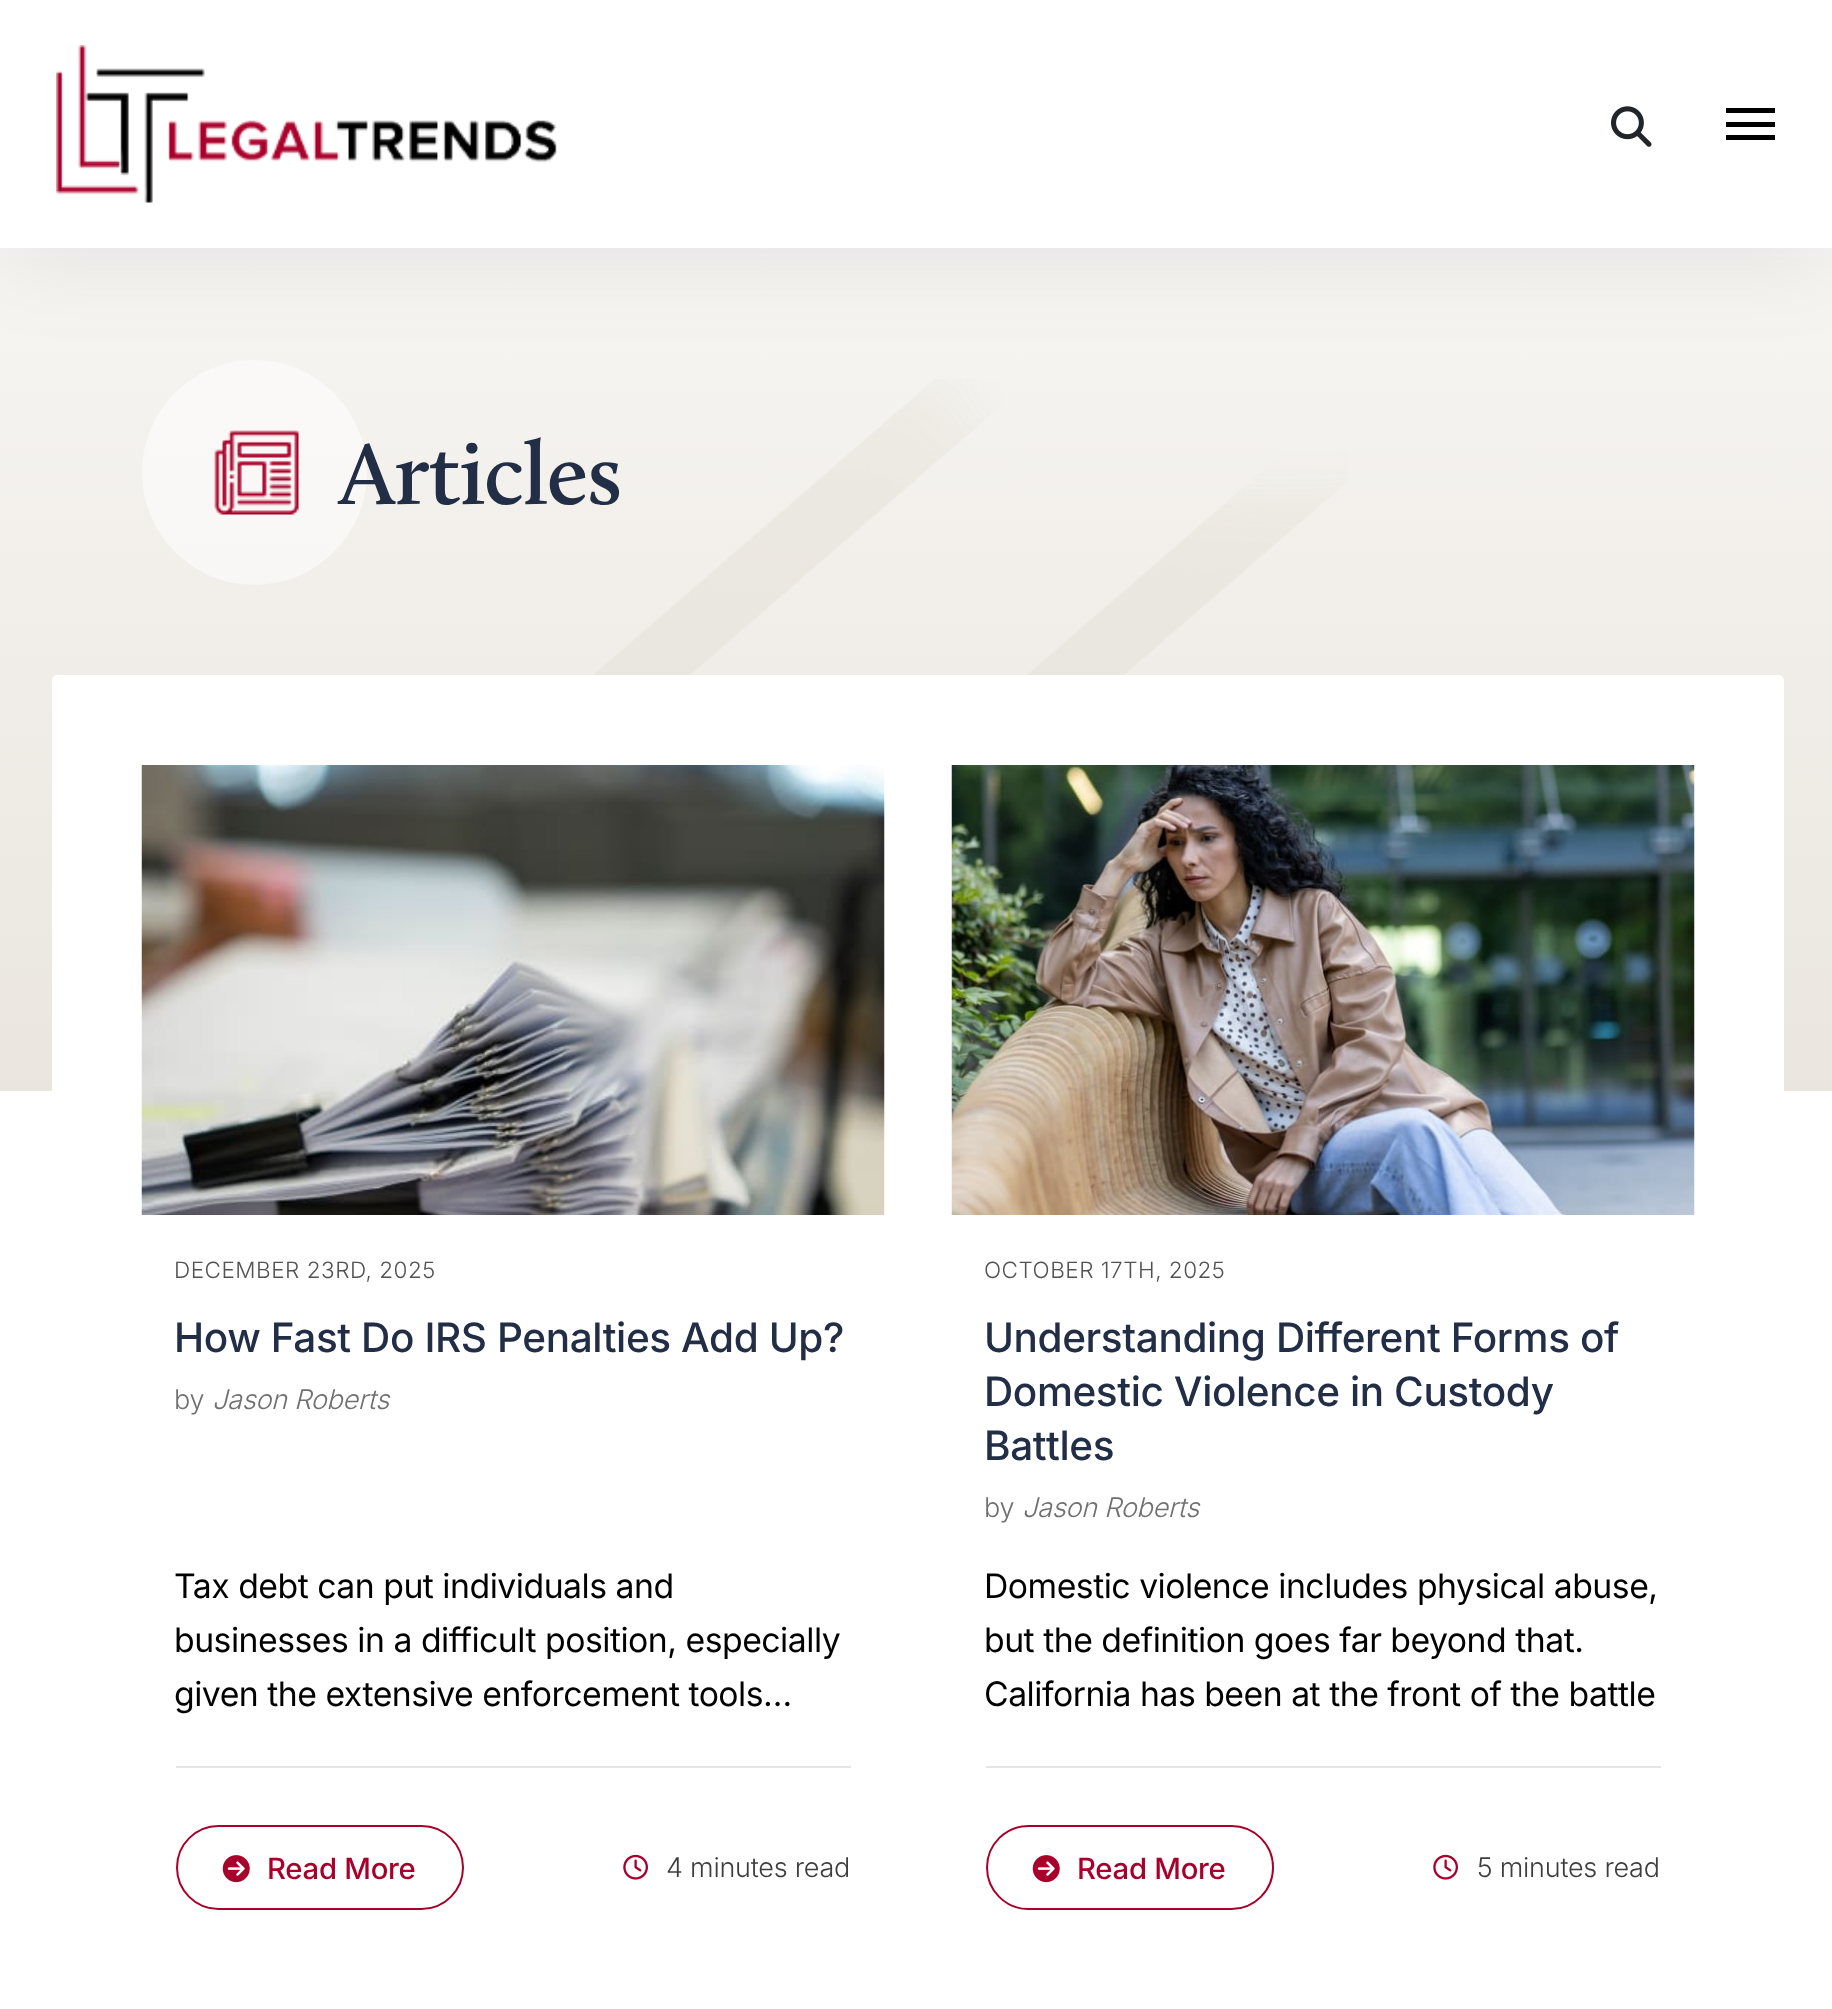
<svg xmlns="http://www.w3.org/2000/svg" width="1832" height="2009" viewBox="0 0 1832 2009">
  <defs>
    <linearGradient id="g1" gradientUnits="userSpaceOnUse" x1="917" y1="247" x2="917" y2="1091"><stop offset="0" stop-color="#f7f5f2"/><stop offset="1" stop-color="#eae6df"/></linearGradient>
    <filter id="blur1" x="-50%" y="-200%" width="200%" height="500%"><feGaussianBlur stdDeviation="45"/></filter>
  </defs>
  <rect width="100%" height="100%" fill="#ffffff"/>
  <rect x="0" y="248" width="1832" height="843" fill="url(#g1)"/>
  <circle cx="254.5" cy="472.5" r="112.5" fill="#ffffff" fill-opacity="0.5"/>
  <image x="592" y="379" width="756" height="296" href="img4.png"/>
  <rect x="0" y="9" width="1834" height="248" fill="#242639" fill-opacity="0.08" filter="url(#blur1)"/>
  <rect x="0" y="0" width="1832" height="248" fill="#ffffff"/>
  <image x="56" y="45" width="501" height="158" href="img1.png"/>
  <image x="1611" y="106" width="41" height="41" href="img2.png"/>
  <rect x="1726" y="108" width="49" height="5" fill="#000000"/>
  <rect x="1726" y="122" width="49" height="5" fill="#000000"/>
  <rect x="1726" y="135" width="49" height="5" fill="#000000"/>
  <image x="214" y="430" width="85" height="85" href="img3.png"/>
  <text x="339" y="504" font-family="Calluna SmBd" font-size="90" font-weight="600" letter-spacing="-1" fill="#212e45">Articles</text>
  <rect x="52" y="675" width="1732" height="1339" rx="5" fill="#ffffff"/>
  <image x="141" y="765" width="744" height="450" href="img5.png"/>
  <text x="174" y="1278" font-family="Inter" font-size="22.5" font-weight="300" letter-spacing="0.5" fill="#525252">DECEMBER 23RD, 2025</text>
  <text x="174" y="1352" font-family="Inter" font-size="40.5" font-weight="500" letter-spacing="-0.4" fill="#212e45">How Fast Do IRS Penalties Add Up?</text>
  <text x="174" y="1409" font-family="Inter" font-size="27" font-weight="300" letter-spacing="-0.25" fill="#707070">by</text>
  <text x="212" y="1409" font-family="Inter" font-size="27" font-weight="300" font-style="italic" letter-spacing="-0.25" fill="#707070">Jason Roberts</text>
  <text x="174" y="1598" font-family="Inter" font-size="33.75" letter-spacing="-0.5" fill="#000000">Tax debt can put individuals and</text>
  <text x="174" y="1652" font-family="Inter" font-size="33.75" letter-spacing="-0.5" fill="#000000">businesses in a difficult position, especially</text>
  <text x="174" y="1706" font-family="Inter" font-size="33.75" letter-spacing="-0.5" fill="#000000">given the extensive enforcement tools…</text>
  <rect x="176" y="1766" width="675" height="2" fill="#e5e5e5"/>
  <rect x="177" y="1826" width="286" height="83" rx="41.5" fill="none" stroke="#a8002a" stroke-width="2"/>
  <image x="222" y="1855" width="28" height="28" href="img6.png"/>
  <text x="267" y="1879" font-family="Inter" font-size="29.25" font-weight="500" letter-spacing="-0.25" fill="#a8002a">Read More</text>
  <image x="623" y="1854" width="25" height="26" href="img7.png"/>
  <text x="666" y="1877" font-family="Inter" font-size="27" font-weight="300" letter-spacing="-0.25" fill="#3d3d3d">4 minutes read</text>
  <image x="951" y="765" width="744" height="450" href="img8.png"/>
  <text x="984" y="1278" font-family="Inter" font-size="22.5" font-weight="300" letter-spacing="0.5" fill="#525252">OCTOBER 17TH, 2025</text>
  <text x="984" y="1352" font-family="Inter" font-size="40.5" font-weight="500" letter-spacing="-0.4" fill="#212e45">Understanding Different Forms of</text>
  <text x="984" y="1406" font-family="Inter" font-size="40.5" font-weight="500" letter-spacing="-0.4" fill="#212e45">Domestic Violence in Custody</text>
  <text x="984" y="1460" font-family="Inter" font-size="40.5" font-weight="500" letter-spacing="-0.4" fill="#212e45">Battles</text>
  <text x="984" y="1517" font-family="Inter" font-size="27" font-weight="300" letter-spacing="-0.25" fill="#707070">by</text>
  <text x="1022" y="1517" font-family="Inter" font-size="27" font-weight="300" font-style="italic" letter-spacing="-0.25" fill="#707070">Jason Roberts</text>
  <text x="984" y="1598" font-family="Inter" font-size="33.75" letter-spacing="-0.5" fill="#000000">Domestic violence includes physical abuse,</text>
  <text x="984" y="1652" font-family="Inter" font-size="33.75" letter-spacing="-0.5" fill="#000000">but the definition goes far beyond that.</text>
  <text x="984" y="1706" font-family="Inter" font-size="33.75" letter-spacing="-0.5" fill="#000000">California has been at the front of the battle</text>
  <rect x="986" y="1766" width="675" height="2" fill="#e5e5e5"/>
  <rect x="987" y="1826" width="286" height="83" rx="41.5" fill="none" stroke="#a8002a" stroke-width="2"/>
  <image x="1032" y="1855" width="28" height="28" href="img6.png"/>
  <text x="1077" y="1879" font-family="Inter" font-size="29.25" font-weight="500" letter-spacing="-0.25" fill="#a8002a">Read More</text>
  <image x="1433" y="1854" width="25" height="26" href="img7.png"/>
  <text x="1477" y="1877" font-family="Inter" font-size="27" font-weight="300" letter-spacing="-0.25" fill="#3d3d3d">5 minutes read</text>
</svg>
